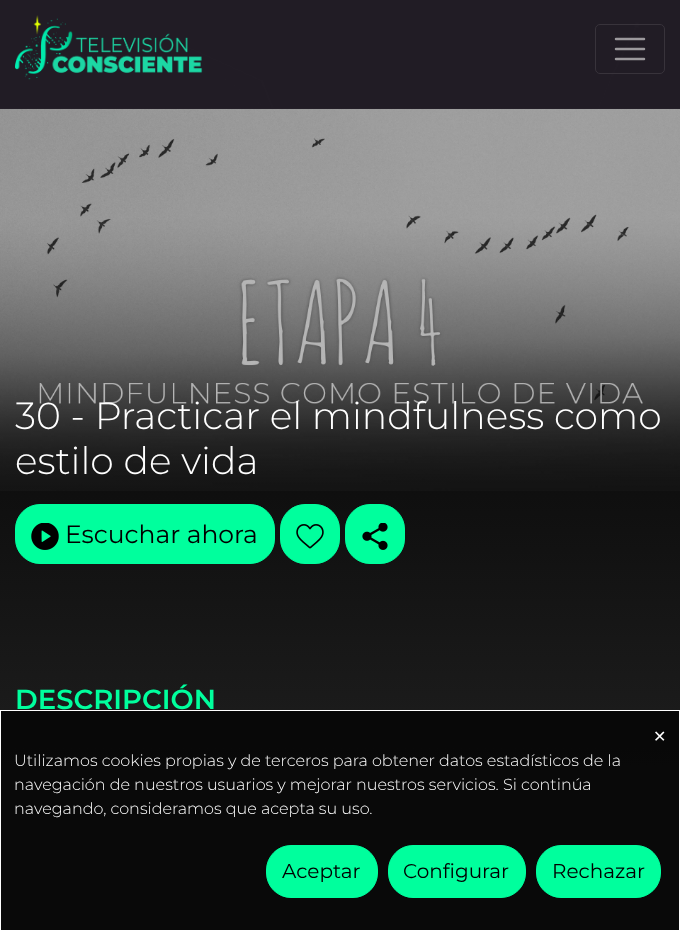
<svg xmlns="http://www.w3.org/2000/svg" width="680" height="931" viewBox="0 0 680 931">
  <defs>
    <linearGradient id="g1" gradientUnits="userSpaceOnUse" x1="340" y1="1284" x2="340" y2="109"><stop offset="0.41" stop-color="#202020"/><stop offset="0.74" stop-color="#202020" stop-opacity="0.33"/></linearGradient>
  </defs>
  <rect width="100%" height="100%" fill="#202020"/>
  <image x="45" y="22" width="596" height="87" href="img2.png"/>
  <image x="0" y="108" width="680" height="383" href="img3.png"/>
  <rect x="0" y="0" width="680" height="109" fill="#221c26" fill-opacity="0.95"/>
  <image x="15" y="15" width="188" height="65" href="img1.png"/>
  <rect x="595.5" y="24.5" width="69" height="49" rx="4.5" fill="none" stroke="#38333b"/>
  <path d="M616 39H644M616 49H644M616 59H644" fill="none" stroke="#9c999d" stroke-width="2.5" stroke-linecap="round"/>
  <rect x="0" y="491" width="680" height="308" fill="#000000"/>
  <rect x="0" y="109" width="680" height="690" fill="url(#g1)"/>
  <text x="15" y="429" font-family="Montserrat" font-size="37.75" font-weight="300" fill="#ffffff">30 - Practicar el mindfulness como</text>
  <text x="15" y="474" font-family="Montserrat" font-size="37.75" font-weight="300" fill="#ffffff">estilo de vida</text>
  <rect x="15.5" y="504.5" width="259" height="59" rx="24.5" fill="#00ff9d" stroke="#00ff9d"/>
  <image x="31" y="523" width="28" height="27" href="img4.png"/>
  <text x="65" y="543" font-family="Montserrat" font-size="25" fill="#000000">Escuchar ahora</text>
  <rect x="280.5" y="504.5" width="59" height="59" rx="24.5" fill="#00ff9d" stroke="#00ff9d"/>
  <image x="296" y="524" width="28" height="25" href="img5.png"/>
  <rect x="345.5" y="504.5" width="59" height="59" rx="24.5" fill="#00ff9d" stroke="#00ff9d"/>
  <image x="362" y="523" width="26" height="27" href="img6.png"/>
  <text x="15" y="709" font-family="Montserrat" font-size="27.5" font-weight="600" fill="#00ff9d">DESCRIPCIÓN</text>
  <rect x="0.5" y="710.5" width="679" height="220" fill="#000000" fill-opacity="0.7" stroke="#ffffff"/>
  <text x="653" y="742" font-family="DejaVu Sans" font-size="16" fill="#ffffff">✕</text>
  <text x="14" y="766" font-family="Montserrat" font-size="16" font-weight="300" fill="#ffffff">Utilizamos cookies propias y de terceros para obtener datos estadísticos de la</text>
  <text x="14" y="790" font-family="Montserrat" font-size="16" font-weight="300" fill="#ffffff">navegación de nuestros usuarios y mejorar nuestros servicios. Si continúa</text>
  <text x="14" y="814" font-family="Montserrat" font-size="16" font-weight="300" fill="#ffffff">navegando, consideramos que acepta su uso.</text>
  <rect x="266.5" y="845.5" width="111" height="52" rx="24.5" fill="#00ff9d" stroke="#00ff9d"/>
  <text x="282" y="878" font-family="Montserrat" font-size="20" fill="#000000">Aceptar</text>
  <rect x="388.5" y="845.5" width="137" height="52" rx="24.5" fill="#00ff9d" stroke="#00ff9d"/>
  <text x="403" y="878" font-family="Montserrat" font-size="20" fill="#000000">Configurar</text>
  <rect x="536.5" y="845.5" width="124" height="52" rx="24.5" fill="#00ff9d" stroke="#00ff9d"/>
  <text x="552" y="878" font-family="Montserrat" font-size="20" fill="#000000">Rechazar</text>
</svg>
